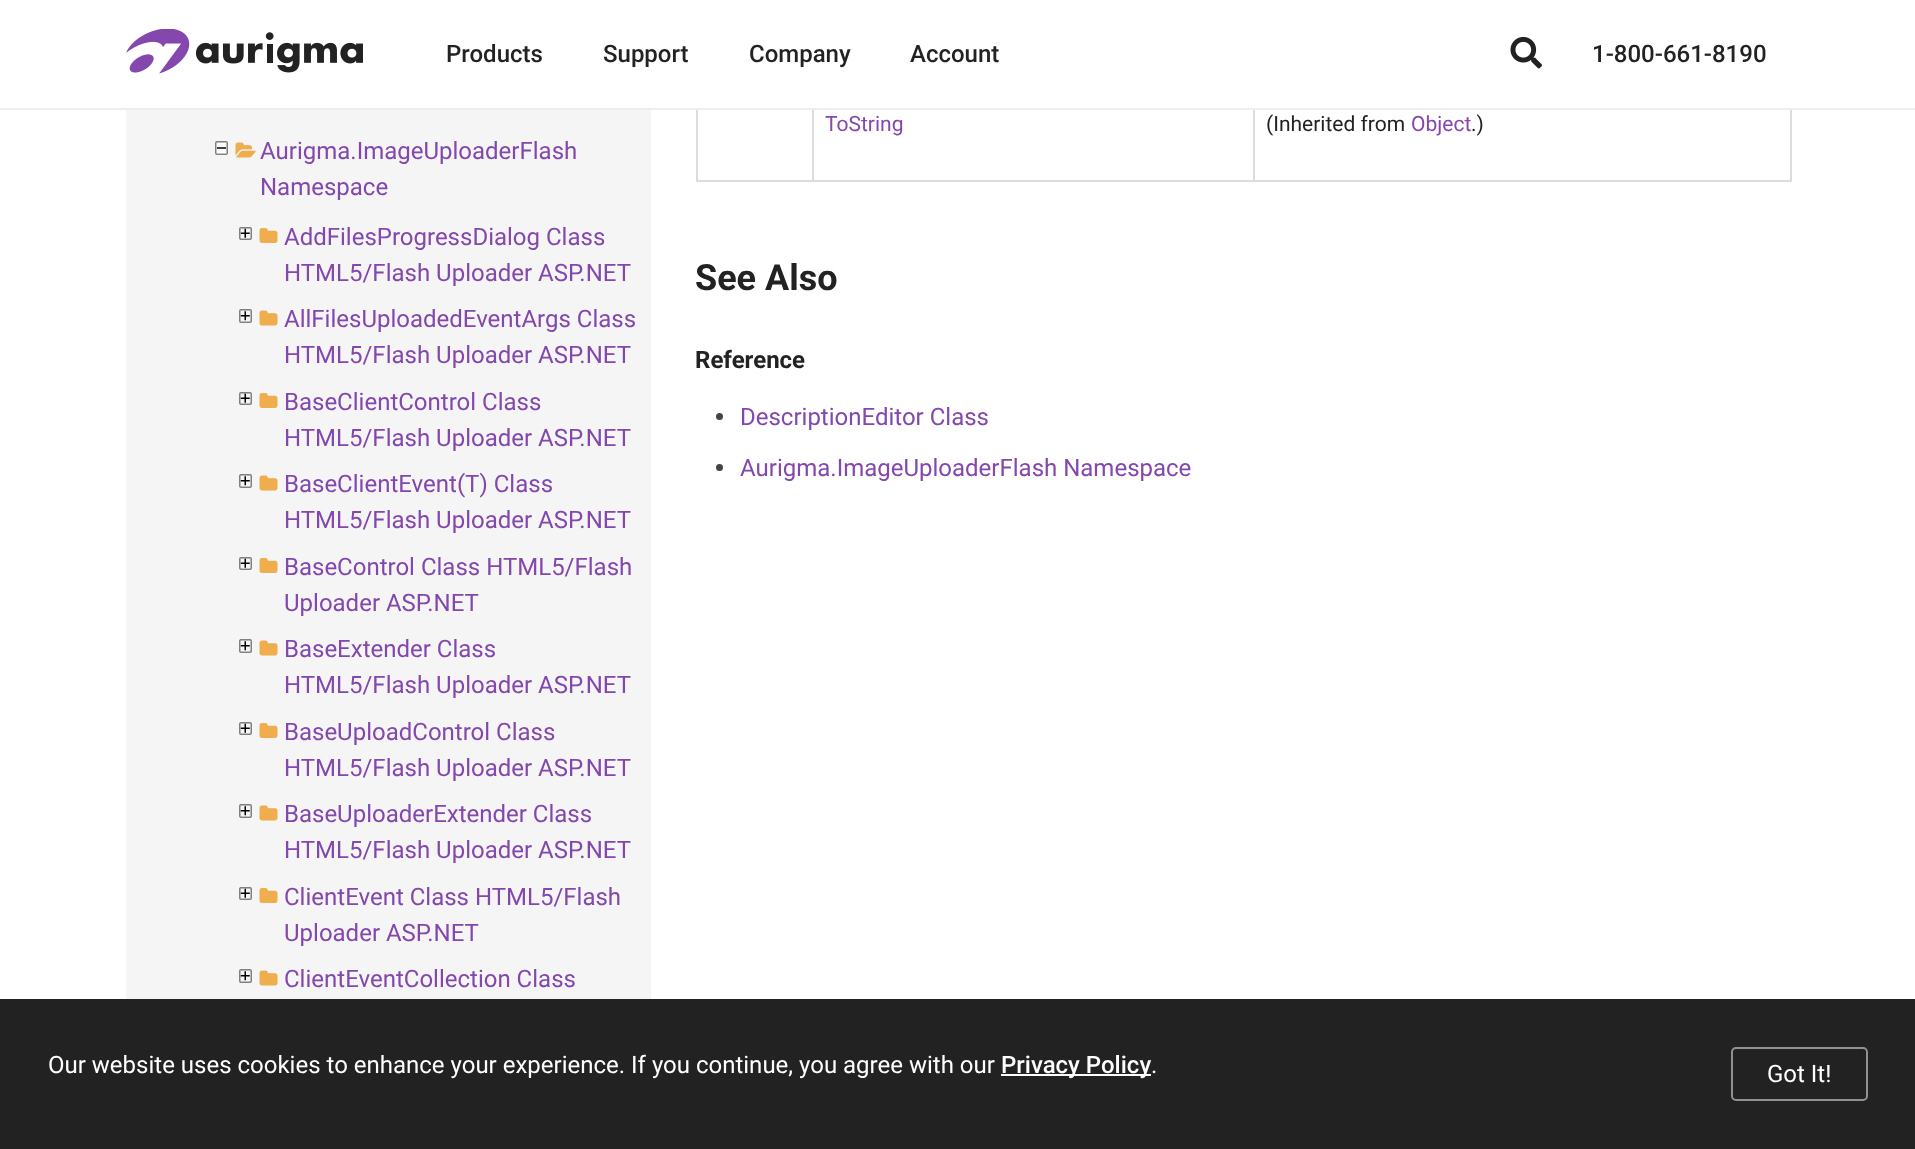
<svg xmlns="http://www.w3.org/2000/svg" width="1915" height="1149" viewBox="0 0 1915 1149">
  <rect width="100%" height="100%" fill="#ffffff"/>
  <rect x="0" y="108" width="1915" height="2" fill="#eeeeee"/>
  <image x="126" y="29" width="237" height="45" href="img1.png"/>
  <text x="446" y="62" font-family="Roboto" font-size="24" font-weight="500" fill="#222222">Products</text>
  <text x="603" y="62" font-family="Roboto" font-size="24" font-weight="500" fill="#222222">Support</text>
  <text x="749" y="62" font-family="Roboto" font-size="24" font-weight="500" fill="#222222">Company</text>
  <text x="910" y="62" font-family="Roboto" font-size="24" font-weight="500" fill="#222222">Account</text>
  <image x="1510" y="36" width="32" height="33" href="img2.png"/>
  <text x="1592" y="62" font-family="Roboto" font-size="24" font-weight="500" fill="#222222">1-800-661-8190</text>
  <rect x="126" y="110" width="525" height="889" fill="#f5f5f5"/>
  <image x="215" y="141" width="13" height="14" href="img3.png"/>
  <image x="235" y="142" width="21" height="16" href="img4.png"/>
  <text x="260" y="159" font-family="Roboto" font-size="24" fill="#8347ad">Aurigma.ImageUploaderFlash</text>
  <text x="260" y="195" font-family="Roboto" font-size="24" fill="#8347ad">Namespace</text>
  <image x="239" y="227" width="13" height="13" href="img5.png"/>
  <image x="259" y="228" width="19" height="15" href="img6.png"/>
  <text x="284" y="245" font-family="Roboto" font-size="24" fill="#8347ad">AddFilesProgressDialog Class</text>
  <text x="284" y="281" font-family="Roboto" font-size="24" fill="#8347ad">HTML5/Flash Uploader ASP.NET</text>
  <image x="239" y="309" width="13" height="14" href="img7.png"/>
  <image x="259" y="310" width="19" height="16" href="img8.png"/>
  <text x="284" y="327" font-family="Roboto" font-size="24" fill="#8347ad">AllFilesUploadedEventArgs Class</text>
  <text x="284" y="363" font-family="Roboto" font-size="24" fill="#8347ad">HTML5/Flash Uploader ASP.NET</text>
  <image x="239" y="392" width="13" height="13" href="img5.png"/>
  <image x="259" y="393" width="19" height="15" href="img6.png"/>
  <text x="284" y="410" font-family="Roboto" font-size="24" fill="#8347ad">BaseClientControl Class</text>
  <text x="284" y="446" font-family="Roboto" font-size="24" fill="#8347ad">HTML5/Flash Uploader ASP.NET</text>
  <image x="239" y="474" width="13" height="14" href="img7.png"/>
  <image x="259" y="475" width="19" height="16" href="img8.png"/>
  <text x="284" y="492" font-family="Roboto" font-size="24" fill="#8347ad">BaseClientEvent(T) Class</text>
  <text x="284" y="528" font-family="Roboto" font-size="24" fill="#8347ad">HTML5/Flash Uploader ASP.NET</text>
  <image x="239" y="557" width="13" height="13" href="img5.png"/>
  <image x="259" y="558" width="19" height="15" href="img6.png"/>
  <text x="284" y="575" font-family="Roboto" font-size="24" fill="#8347ad">BaseControl Class HTML5/Flash</text>
  <text x="284" y="611" font-family="Roboto" font-size="24" fill="#8347ad">Uploader ASP.NET</text>
  <image x="239" y="639" width="13" height="14" href="img7.png"/>
  <image x="259" y="640" width="19" height="16" href="img8.png"/>
  <text x="284" y="657" font-family="Roboto" font-size="24" fill="#8347ad">BaseExtender Class</text>
  <text x="284" y="693" font-family="Roboto" font-size="24" fill="#8347ad">HTML5/Flash Uploader ASP.NET</text>
  <image x="239" y="722" width="13" height="13" href="img5.png"/>
  <image x="259" y="723" width="19" height="15" href="img6.png"/>
  <text x="284" y="740" font-family="Roboto" font-size="24" fill="#8347ad">BaseUploadControl Class</text>
  <text x="284" y="776" font-family="Roboto" font-size="24" fill="#8347ad">HTML5/Flash Uploader ASP.NET</text>
  <image x="239" y="804" width="13" height="14" href="img7.png"/>
  <image x="259" y="805" width="19" height="16" href="img8.png"/>
  <text x="284" y="822" font-family="Roboto" font-size="24" fill="#8347ad">BaseUploaderExtender Class</text>
  <text x="284" y="858" font-family="Roboto" font-size="24" fill="#8347ad">HTML5/Flash Uploader ASP.NET</text>
  <image x="239" y="887" width="13" height="13" href="img5.png"/>
  <image x="259" y="888" width="19" height="15" href="img6.png"/>
  <text x="284" y="905" font-family="Roboto" font-size="24" fill="#8347ad">ClientEvent Class HTML5/Flash</text>
  <text x="284" y="941" font-family="Roboto" font-size="24" fill="#8347ad">Uploader ASP.NET</text>
  <image x="239" y="969" width="13" height="14" href="img7.png"/>
  <image x="259" y="970" width="19" height="16" href="img8.png"/>
  <text x="284" y="987" font-family="Roboto" font-size="24" fill="#8347ad">ClientEventCollection Class</text>
  <rect x="1790" y="110" width="2" height="72" fill="#dddddd"/>
  <rect x="696" y="180" width="1095" height="2" fill="#dddddd"/>
  <rect x="696" y="110" width="2" height="72" fill="#dddddd"/>
  <rect x="812" y="110" width="2" height="72" fill="#dddddd"/>
  <text x="825" y="131" font-family="Roboto" font-size="21" fill="#8347ad">ToString</text>
  <rect x="1253" y="110" width="2" height="72" fill="#dddddd"/>
  <text x="1266" y="131" font-family="Roboto" font-size="21" fill="#222222">(Inherited from</text>
  <text x="1411" y="131" font-family="Roboto" font-size="21" fill="#8347ad">Object</text>
  <text x="1471" y="131" font-family="Roboto" font-size="21" fill="#222222">.)</text>
  <text x="695" y="290" font-family="Roboto" font-size="36" font-weight="bold" fill="#222222">See Also</text>
  <text x="695" y="368" font-family="Roboto" font-size="24" font-weight="bold" fill="#222222">Reference</text>
  <circle cx="719.5" cy="416.5" r="3.5" fill="#444444"/>
  <text x="740" y="425" font-family="Roboto" font-size="24" fill="#8347ad">DescriptionEditor Class</text>
  <circle cx="719.5" cy="467.5" r="3.5" fill="#444444"/>
  <text x="740" y="476" font-family="Roboto" font-size="24" fill="#8347ad">Aurigma.ImageUploaderFlash Namespace</text>
  <rect x="0" y="999" width="1915" height="150" fill="#222222"/>
  <text x="48" y="1073" font-family="Roboto" font-size="24" fill="#ffffff">Our website uses cookies to enhance your experience. If you continue, you agree with our</text>
  <rect x="1001" y="1074" width="150" height="2" fill="#ffffff"/>
  <text x="1001" y="1073" font-family="Roboto" font-size="24" font-weight="500" fill="#ffffff">Privacy Policy</text>
  <text x="1151" y="1073" font-family="Roboto" font-size="24" fill="#ffffff">.</text>
  <rect x="1732" y="1048" width="135" height="52" rx="4" fill="none" stroke="#919191" stroke-width="2"/>
  <text x="1767" y="1082" font-family="Roboto" font-size="24" fill="#ffffff">Got It!</text>
</svg>
